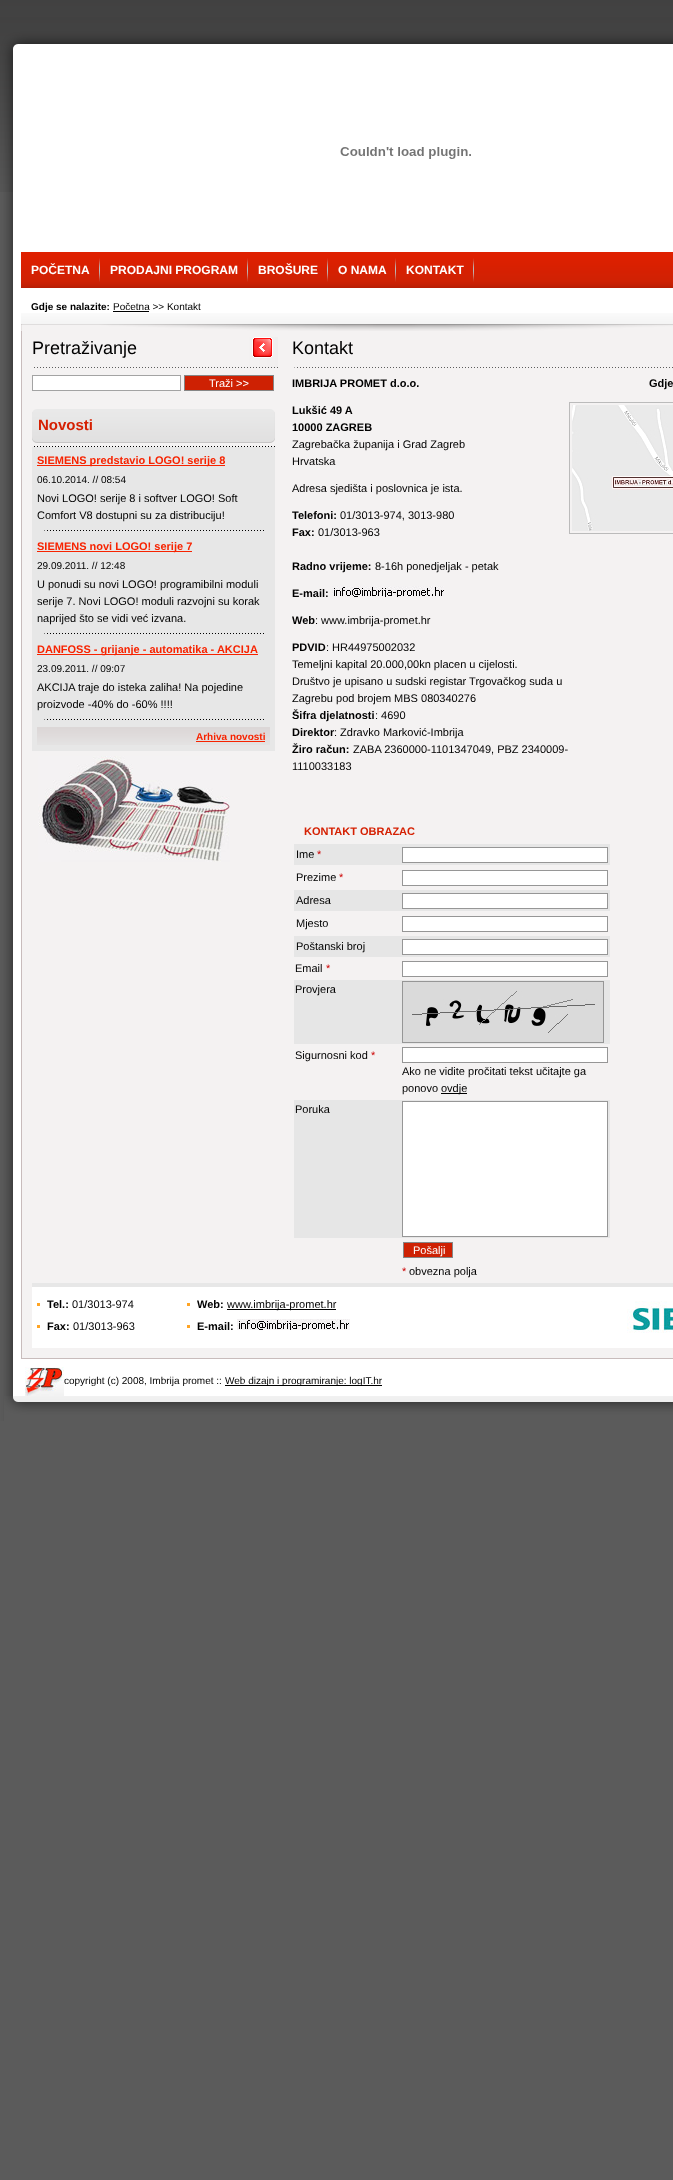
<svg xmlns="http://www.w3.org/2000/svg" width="673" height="2180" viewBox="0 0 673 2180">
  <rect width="100%" height="100%" fill="#5b5b5b"/>
  <image x="0" y="0" width="673" height="17" href="img1.png"/>
  <image x="0" y="192" width="673" height="1229" href="img2.png"/>
  <image x="0" y="17" width="673" height="175" href="img3.png"/>
  <image x="340" y="147" width="131" height="12" href="img4.png"/>
  <image x="21" y="252" width="652" height="36" href="img5.png"/>
  <image x="99" y="258" width="1" height="24" href="img6.png"/>
  <text x="31" y="274" font-family="Liberation Sans" font-size="12" font-weight="bold" fill="#ffffff">POČETNA</text>
  <image x="247" y="258" width="1" height="24" href="img6.png"/>
  <text x="110" y="274" font-family="Liberation Sans" font-size="12" font-weight="bold" fill="#ffffff">PRODAJNI PROGRAM</text>
  <image x="327" y="258" width="1" height="24" href="img6.png"/>
  <text x="258" y="274" font-family="Liberation Sans" font-size="12" font-weight="bold" fill="#ffffff">BROŠURE</text>
  <image x="395" y="258" width="1" height="24" href="img6.png"/>
  <text x="338" y="274" font-family="Liberation Sans" font-size="12" font-weight="bold" fill="#ffffff">O NAMA</text>
  <image x="473" y="258" width="1" height="24" href="img6.png"/>
  <text x="406" y="274" font-family="Liberation Sans" font-size="12" font-weight="bold" fill="#ffffff">KONTAKT</text>
  <image x="21" y="313" width="652" height="18" href="img7.png"/>
  <text x="31" y="310" font-family="Liberation Sans" font-size="10" font-weight="bold" fill="#000000">Gdje se nalazite:</text>
  <text x="113" y="310" font-family="Liberation Sans" font-size="10" fill="#000000">Početna &gt;&gt; Kontakt</text>
  <rect x="113" y="311" width="36" height="1" fill="#000000"/>
  <rect x="22" y="331" width="651" height="1027" fill="#f4f2f2"/>
  <rect x="21" y="1358" width="652" height="1" fill="#c8bcbc"/>
  <rect x="21" y="331" width="1" height="1028" fill="#c8bcbc"/>
  <image x="34" y="337" width="244" height="31" href="img8.png"/>
  <text x="32" y="354" font-family="Liberation Sans" font-size="18" fill="#000000">Pretraživanje</text>
  <rect x="32.5" y="375.5" width="148" height="15" fill="#ffffff" stroke="#a3a3a3"/>
  <rect x="184.5" y="375.5" width="89" height="15" fill="#ce2103" stroke="#868686"/>
  <text x="209" y="387" font-family="Liberation Sans" font-size="11" fill="#ffffff">Traži &gt;&gt;</text>
  <image x="32" y="409" width="243" height="38" href="img9.png"/>
  <text x="38" y="430" font-family="Liberation Sans" font-size="15" font-weight="bold" fill="#d52002">Novosti</text>
  <rect x="32" y="447" width="243" height="304" fill="#e7e7e7"/>
  <rect x="37" y="465" width="188" height="1" fill="#f72300"/>
  <text x="37" y="464" font-family="Liberation Sans" font-size="11" font-weight="bold" fill="#f72300">SIEMENS predstavio LOGO! serije 8</text>
  <text x="37" y="483" font-family="Liberation Sans" font-size="10" fill="#000000">06.10.2014. // 08:54</text>
  <image x="44" y="530" width="220" height="1" href="img10.png"/>
  <text x="37" y="502" font-family="Liberation Sans" font-size="11" fill="#000000">Novi LOGO! serije 8 i softver LOGO! Soft</text>
  <text x="37" y="519" font-family="Liberation Sans" font-size="11" fill="#000000">Comfort V8 dostupni su za distribuciju!</text>
  <rect x="37" y="551" width="155" height="1" fill="#f72300"/>
  <text x="37" y="550" font-family="Liberation Sans" font-size="11" font-weight="bold" fill="#f72300">SIEMENS novi LOGO! serije 7</text>
  <text x="37" y="569" font-family="Liberation Sans" font-size="10" fill="#000000">29.09.2011. // 12:48</text>
  <image x="44" y="633" width="220" height="1" href="img10.png"/>
  <text x="37" y="588" font-family="Liberation Sans" font-size="11" fill="#000000">U ponudi su novi LOGO! programibilni moduli</text>
  <text x="37" y="605" font-family="Liberation Sans" font-size="11" fill="#000000">serije 7. Novi LOGO! moduli razvojni su korak</text>
  <text x="37" y="622" font-family="Liberation Sans" font-size="11" fill="#000000">naprijed što se vidi već izvana.</text>
  <rect x="37" y="654" width="221" height="1" fill="#f72300"/>
  <text x="37" y="653" font-family="Liberation Sans" font-size="11" font-weight="bold" fill="#f72300">DANFOSS - grijanje - automatika - AKCIJA</text>
  <text x="37" y="672" font-family="Liberation Sans" font-size="10" fill="#000000">23.09.2011. // 09:07</text>
  <image x="44" y="719" width="220" height="1" href="img10.png"/>
  <text x="37" y="691" font-family="Liberation Sans" font-size="11" fill="#000000">AKCIJA traje do isteka zaliha! Na pojedine</text>
  <text x="37" y="708" font-family="Liberation Sans" font-size="11" fill="#000000">proizvode -40% do -60% !!!!</text>
  <image x="37" y="727" width="233" height="18" href="img11.png"/>
  <text x="196" y="740" font-family="Liberation Sans" font-size="10" font-weight="bold" fill="#f72300">Arhiva novosti</text>
  <rect x="196" y="741" width="69" height="1" fill="#f72300"/>
  <image x="38" y="756" width="192" height="106" href="img12.png"/>
  <image x="294" y="367" width="379" height="1" href="img13.png"/>
  <text x="292" y="354" font-family="Liberation Sans" font-size="18" fill="#000000">Kontakt</text>
  <text x="292" y="387" font-family="Liberation Sans" font-size="11" font-weight="bold" fill="#000000">IMBRIJA PROMET d.o.o.</text>
  <text x="292" y="414" font-family="Liberation Sans" font-size="11" font-weight="bold" fill="#000000">Lukšić 49 A</text>
  <text x="292" y="431" font-family="Liberation Sans" font-size="11" font-weight="bold" fill="#000000">10000 ZAGREB</text>
  <text x="292" y="448" font-family="Liberation Sans" font-size="11" fill="#000000">Zagrebačka županija i Grad Zagreb</text>
  <text x="292" y="465" font-family="Liberation Sans" font-size="11" fill="#000000">Hrvatska</text>
  <text x="292" y="492" font-family="Liberation Sans" font-size="11" fill="#000000">Adresa sjedišta i poslovnica je ista.</text>
  <text x="292" y="519" font-family="Liberation Sans" font-size="11" font-weight="bold" fill="#000000">Telefoni:</text>
  <text x="340" y="519" font-family="Liberation Sans" font-size="11" fill="#000000">01/3013-974, 3013-980</text>
  <text x="292" y="536" font-family="Liberation Sans" font-size="11" font-weight="bold" fill="#000000">Fax:</text>
  <text x="318" y="536" font-family="Liberation Sans" font-size="11" fill="#000000">01/3013-963</text>
  <text x="292" y="570" font-family="Liberation Sans" font-size="11" font-weight="bold" fill="#000000">Radno vrijeme:</text>
  <text x="375" y="570" font-family="Liberation Sans" font-size="11" fill="#000000">8-16h ponedjeljak - petak</text>
  <text x="292" y="597" font-family="Liberation Sans" font-size="11" font-weight="bold" fill="#000000">E-mail:</text>
  <image x="332" y="586" width="112" height="11" href="img14.png"/>
  <text x="292" y="624" font-family="Liberation Sans" font-size="11" font-weight="bold" fill="#000000">Web</text>
  <text x="315" y="624" font-family="Liberation Sans" font-size="11" fill="#000000">: www.imbrija-promet.hr</text>
  <text x="292" y="651" font-family="Liberation Sans" font-size="11" font-weight="bold" fill="#000000">PDVID</text>
  <text x="326" y="651" font-family="Liberation Sans" font-size="11" fill="#000000">: HR44975002032</text>
  <text x="292" y="668" font-family="Liberation Sans" font-size="11" fill="#000000">Temeljni kapital 20.000,00kn placen u cijelosti.</text>
  <text x="292" y="685" font-family="Liberation Sans" font-size="11" fill="#000000">Društvo je upisano u sudski registar Trgovačkog suda u</text>
  <text x="292" y="702" font-family="Liberation Sans" font-size="11" fill="#000000">Zagrebu pod brojem MBS 080340276</text>
  <text x="292" y="719" font-family="Liberation Sans" font-size="11" font-weight="bold" fill="#000000">Šifra djelatnosti</text>
  <text x="375" y="719" font-family="Liberation Sans" font-size="11" fill="#000000">: 4690</text>
  <text x="292" y="736" font-family="Liberation Sans" font-size="11" font-weight="bold" fill="#000000">Direktor</text>
  <text x="334" y="736" font-family="Liberation Sans" font-size="11" fill="#000000">: Zdravko Marković-Imbrija</text>
  <text x="292" y="753" font-family="Liberation Sans" font-size="11" font-weight="bold" fill="#000000">Žiro račun:</text>
  <text x="353" y="753" font-family="Liberation Sans" font-size="11" fill="#000000">ZABA 2360000-1101347049, PBZ 2340009-</text>
  <text x="292" y="770" font-family="Liberation Sans" font-size="11" fill="#000000">1110033183</text>
  <text x="649" y="387" font-family="Liberation Sans" font-size="11" font-weight="bold" fill="#000000">Gdje</text>
  <rect x="569.5" y="402.5" width="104" height="131" fill="none" stroke="#bbbbbb"/>
  <image x="572" y="405" width="101" height="126" href="img15.png"/>
  <text x="304" y="835" font-family="Liberation Sans" font-size="11" font-weight="bold" fill="#d52002">KONTAKT OBRAZAC</text>
  <rect x="294" y="844" width="316" height="21" fill="#e6e6e6"/>
  <text x="296" y="858" font-family="Liberation Sans" font-size="11" fill="#000000">Ime</text>
  <text x="317" y="858" font-family="Liberation Sans" font-size="11" fill="#cc0000">*</text>
  <rect x="402.5" y="847.5" width="205" height="15" fill="#ffffff" stroke="#969696"/>
  <text x="296" y="881" font-family="Liberation Sans" font-size="11" fill="#000000">Prezime</text>
  <text x="339" y="881" font-family="Liberation Sans" font-size="11" fill="#cc0000">*</text>
  <rect x="402.5" y="870.5" width="205" height="15" fill="#ffffff" stroke="#969696"/>
  <rect x="294" y="890" width="316" height="21" fill="#e6e6e6"/>
  <text x="296" y="904" font-family="Liberation Sans" font-size="11" fill="#000000">Adresa</text>
  <rect x="402.5" y="893.5" width="205" height="15" fill="#ffffff" stroke="#969696"/>
  <text x="296" y="927" font-family="Liberation Sans" font-size="11" fill="#000000">Mjesto</text>
  <rect x="402.5" y="916.5" width="205" height="15" fill="#ffffff" stroke="#969696"/>
  <rect x="294" y="936" width="316" height="21" fill="#e6e6e6"/>
  <text x="296" y="950" font-family="Liberation Sans" font-size="11" fill="#000000">Poštanski broj</text>
  <rect x="402.5" y="939.5" width="205" height="15" fill="#ffffff" stroke="#969696"/>
  <text x="295" y="972" font-family="Liberation Sans" font-size="11" fill="#000000">Email</text>
  <text x="326" y="972" font-family="Liberation Sans" font-size="11" fill="#cc0000">*</text>
  <rect x="402.5" y="961.5" width="205" height="15" fill="#ffffff" stroke="#969696"/>
  <rect x="294" y="980" width="316" height="64" fill="#e6e6e6"/>
  <text x="295" y="993" font-family="Liberation Sans" font-size="11" fill="#000000">Provjera</text>
  <rect x="402.5" y="981.5" width="201" height="61" fill="none" stroke="#969696"/>
  <image x="403" y="982" width="200" height="60" href="img16.png"/>
  <text x="295" y="1059" font-family="Liberation Sans" font-size="11" fill="#000000">Sigurnosni kod</text>
  <text x="371" y="1059" font-family="Liberation Sans" font-size="11" fill="#cc0000">*</text>
  <rect x="402.5" y="1047.5" width="205" height="15" fill="#ffffff" stroke="#969696"/>
  <text x="402" y="1075" font-family="Liberation Sans" font-size="11" fill="#000000">Ako ne vidite pročitati tekst učitajte ga</text>
  <text x="402" y="1092" font-family="Liberation Sans" font-size="11" fill="#000000">ponovo</text>
  <rect x="441" y="1093" width="26" height="1" fill="#000000"/>
  <text x="441" y="1092" font-family="Liberation Sans" font-size="11" fill="#000000">ovdje</text>
  <rect x="294" y="1100" width="316" height="138" fill="#e6e6e6"/>
  <text x="295" y="1113" font-family="Liberation Sans" font-size="11" fill="#000000">Poruka</text>
  <rect x="402.5" y="1101.5" width="205" height="135" fill="#ffffff" stroke="#969696"/>
  <rect x="403.5" y="1242.5" width="49" height="15" fill="#ce2103" stroke="#868686"/>
  <text x="413" y="1254" font-family="Liberation Sans" font-size="11" fill="#ffffff">Pošalji</text>
  <text x="402" y="1275" font-family="Liberation Sans" font-size="11" fill="#cc0000">*</text>
  <text x="409" y="1275" font-family="Liberation Sans" font-size="11" fill="#000000">obvezna polja</text>
  <rect x="32" y="1287" width="641" height="61" fill="#ffffff"/>
  <rect x="32" y="1283" width="641" height="4" fill="#e7e7e7"/>
  <rect x="37" y="1303" width="3" height="3" fill="#ffa424"/>
  <text x="47" y="1308" font-family="Liberation Sans" font-size="11" font-weight="bold" fill="#000000">Tel.:</text>
  <text x="72" y="1308" font-family="Liberation Sans" font-size="11" fill="#000000">01/3013-974</text>
  <rect x="37" y="1325" width="3" height="3" fill="#ffa424"/>
  <text x="47" y="1330" font-family="Liberation Sans" font-size="11" font-weight="bold" fill="#000000">Fax:</text>
  <text x="73" y="1330" font-family="Liberation Sans" font-size="11" fill="#000000">01/3013-963</text>
  <rect x="187" y="1303" width="3" height="3" fill="#ffa424"/>
  <text x="197" y="1308" font-family="Liberation Sans" font-size="11" font-weight="bold" fill="#000000">Web:</text>
  <rect x="227" y="1309" width="109" height="1" fill="#000000"/>
  <text x="227" y="1308" font-family="Liberation Sans" font-size="11" fill="#000000">www.imbrija-promet.hr</text>
  <rect x="187" y="1325" width="3" height="3" fill="#ffa424"/>
  <text x="197" y="1330" font-family="Liberation Sans" font-size="11" font-weight="bold" fill="#000000">E-mail:</text>
  <image x="237" y="1319" width="113" height="11" href="img17.png"/>
  <image x="627" y="1301" width="46" height="32" href="img18.png"/>
  <image x="4" y="1396" width="669" height="25" href="img19.png"/>
  <image x="25" y="1367" width="39" height="29" href="img20.png"/>
  <text x="64" y="1384" font-family="Liberation Sans" font-size="10" fill="#000000">copyright (c) 2008, Imbrija promet ::</text>
  <rect x="225" y="1385" width="157" height="1" fill="#000000"/>
  <text x="225" y="1384" font-family="Liberation Sans" font-size="10" fill="#000000">Web dizajn i programiranje: logIT.hr</text>
</svg>
